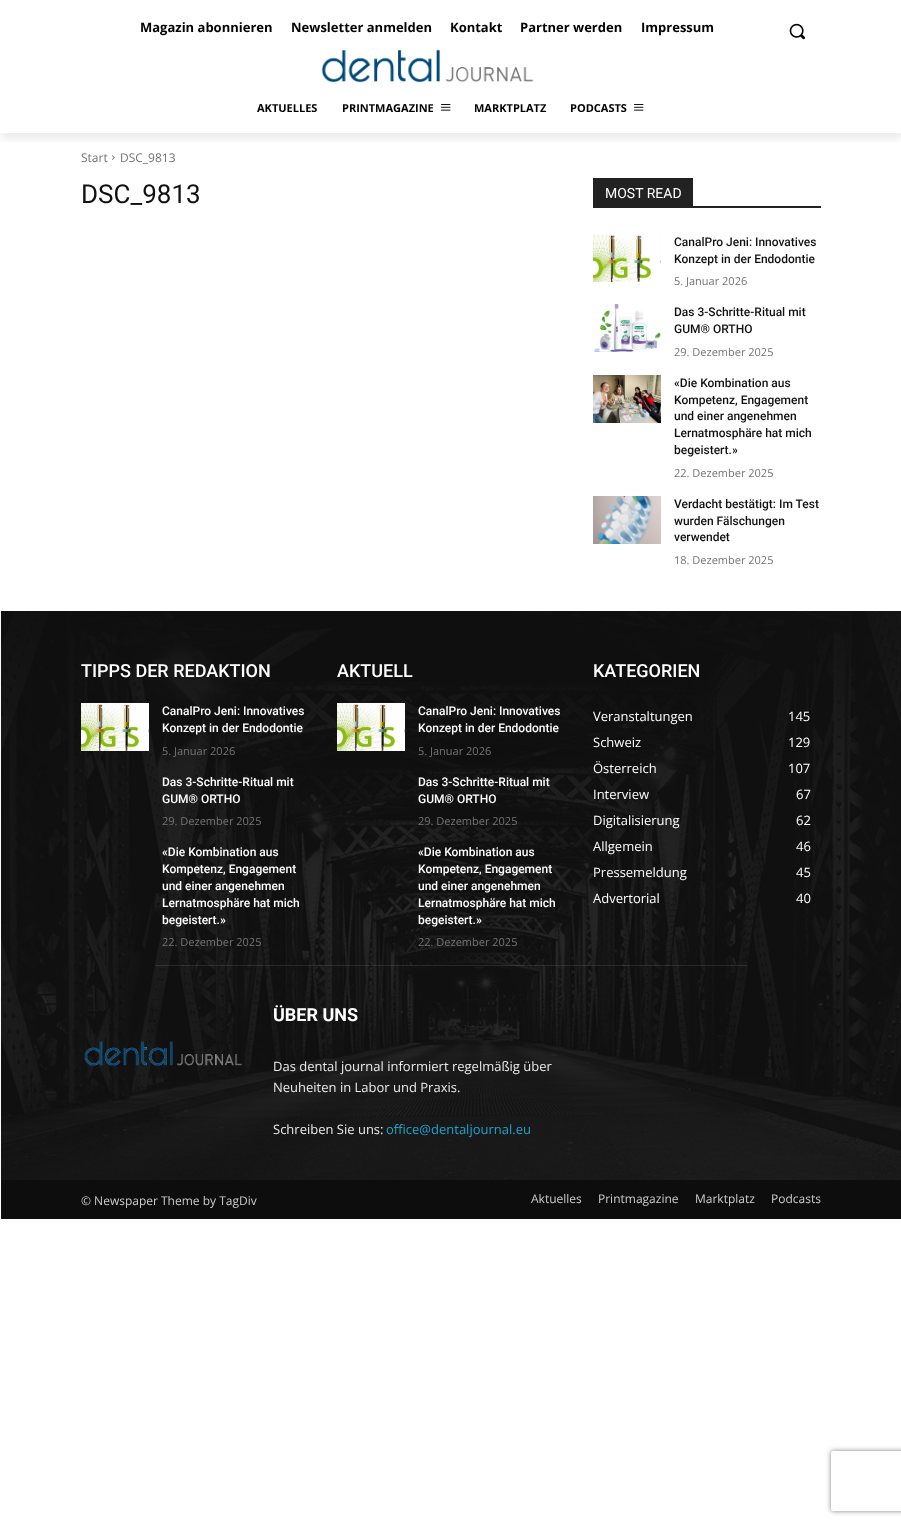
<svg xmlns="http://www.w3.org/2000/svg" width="901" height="1525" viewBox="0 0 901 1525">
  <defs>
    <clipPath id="clip1"><rect x="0" y="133" width="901" height="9"/></clipPath>
    <filter id="blur1" x="-50%" y="-200%" width="200%" height="500%"><feGaussianBlur stdDeviation="4"/></filter>
    <clipPath id="clip2"><path d="M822 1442H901V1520H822ZM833 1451H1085C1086 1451 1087 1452 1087 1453V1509C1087 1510 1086 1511 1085 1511H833C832 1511 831 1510 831 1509V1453C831 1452 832 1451 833 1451Z" clip-rule="evenodd"/></clipPath>
    <filter id="blur2" x="-50%" y="-200%" width="200%" height="500%"><feGaussianBlur stdDeviation="2.5"/></filter>
  </defs>
  <rect width="100%" height="100%" fill="#ffffff"/>
  <image x="321" y="49" width="213" height="34" href="img2.png"/>
  <g clip-path="url(#clip1)">
    <rect x="1" y="6" width="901" height="133" fill="#000000" fill-opacity="0.08" filter="url(#blur1)"/>
  </g>
  <text x="140" y="32" font-family="Open Sans" font-size="13" font-weight="bold" fill="#000000">Magazin abonnieren</text>
  <text x="291" y="32" font-family="Open Sans" font-size="13" font-weight="bold" fill="#000000">Newsletter anmelden</text>
  <text x="450" y="32" font-family="Open Sans" font-size="13" font-weight="bold" fill="#000000">Kontakt</text>
  <text x="520" y="32" font-family="Open Sans" font-size="13" font-weight="bold" fill="#000000">Partner werden</text>
  <text x="641" y="32" font-family="Open Sans" font-size="13" font-weight="bold" fill="#000000">Impressum</text>
  <image x="789" y="23" width="16" height="17" href="img1.png"/>
  <text x="257" y="112" font-family="Open Sans" font-size="11" font-weight="bold" fill="#000000">AKTUELLES</text>
  <text x="342" y="112" font-family="Open Sans" font-size="11" font-weight="bold" fill="#000000">PRINTMAGAZINE</text>
  <image x="441" y="104" width="10" height="7" href="img3.png"/>
  <text x="474" y="112" font-family="Open Sans" font-size="11" font-weight="bold" fill="#000000">MARKTPLATZ</text>
  <text x="570" y="112" font-family="Open Sans" font-size="11" font-weight="bold" fill="#000000">PODCASTS</text>
  <image x="634" y="104" width="10" height="7" href="img3.png"/>
  <text x="81" y="162" font-family="Open Sans" font-size="12" fill="#747474">Start</text>
  <image x="112" y="155" width="3" height="5" href="img4.png"/>
  <text x="120" y="162" font-family="Open Sans" font-size="12" fill="#747474">DSC_9813</text>
  <text x="81" y="203" font-family="Roboto" font-size="26" fill="#111111">DSC_9813</text>
  <rect x="593" y="206" width="228" height="2" fill="#222222"/>
  <rect x="593" y="178" width="100" height="28" fill="#222222"/>
  <text x="605" y="198" font-family="Roboto" font-size="14" fill="#ffffff">MOST READ</text>
  <image x="593" y="234" width="68" height="48" href="img5.png"/>
  <text x="674" y="246" font-family="Roboto" font-size="12" font-weight="500" fill="#111111">CanalPro Jeni: Innovatives</text>
  <text x="674" y="263" font-family="Roboto" font-size="12" font-weight="500" fill="#111111">Konzept in der Endodontie</text>
  <text x="674" y="285" font-family="Open Sans" font-size="11" fill="#747474">5. Januar 2026</text>
  <image x="594" y="304" width="67" height="48" href="img6.png"/>
  <text x="674" y="316" font-family="Roboto" font-size="12" font-weight="500" fill="#111111">Das 3-Schritte-Ritual mit</text>
  <text x="674" y="333" font-family="Roboto" font-size="12" font-weight="500" fill="#111111">GUM® ORTHO</text>
  <text x="674" y="356" font-family="Open Sans" font-size="11" fill="#747474">29. Dezember 2025</text>
  <image x="593" y="375" width="68" height="48" href="img7.png"/>
  <text x="674" y="387" font-family="Roboto" font-size="12" font-weight="500" fill="#111111">«Die Kombination aus</text>
  <text x="674" y="404" font-family="Roboto" font-size="12" font-weight="500" fill="#111111">Kompetenz, Engagement</text>
  <text x="674" y="420" font-family="Roboto" font-size="12" font-weight="500" fill="#111111">und einer angenehmen</text>
  <text x="674" y="437" font-family="Roboto" font-size="12" font-weight="500" fill="#111111">Lernatmosphäre hat mich</text>
  <text x="674" y="454" font-family="Roboto" font-size="12" font-weight="500" fill="#111111">begeistert.»</text>
  <text x="674" y="477" font-family="Open Sans" font-size="11" fill="#747474">22. Dezember 2025</text>
  <image x="593" y="496" width="68" height="48" href="img8.png"/>
  <text x="674" y="508" font-family="Roboto" font-size="12" font-weight="500" fill="#111111">Verdacht bestätigt: Im Test</text>
  <text x="674" y="525" font-family="Roboto" font-size="12" font-weight="500" fill="#111111">wurden Fälschungen</text>
  <text x="674" y="541" font-family="Roboto" font-size="12" font-weight="500" fill="#111111">verwendet</text>
  <text x="674" y="564" font-family="Open Sans" font-size="11" fill="#747474">18. Dezember 2025</text>
  <rect x="1" y="611" width="900" height="569" fill="#111111"/>
  <image x="0" y="611" width="901" height="569" href="img9.png"/>
  <text x="81" y="677" font-family="Roboto" font-size="18" font-weight="500" fill="#ffffff">TIPPS DER REDAKTION</text>
  <image x="81" y="703" width="68" height="48" href="img10.png"/>
  <text x="162" y="715" font-family="Roboto" font-size="12" font-weight="500" fill="#ffffff">CanalPro Jeni: Innovatives</text>
  <text x="162" y="732" font-family="Roboto" font-size="12" font-weight="500" fill="#ffffff">Konzept in der Endodontie</text>
  <text x="162" y="755" font-family="Open Sans" font-size="11" fill="#747474">5. Januar 2026</text>
  <text x="162" y="786" font-family="Roboto" font-size="12" font-weight="500" fill="#ffffff">Das 3-Schritte-Ritual mit</text>
  <text x="162" y="803" font-family="Roboto" font-size="12" font-weight="500" fill="#ffffff">GUM® ORTHO</text>
  <text x="162" y="825" font-family="Open Sans" font-size="11" fill="#747474">29. Dezember 2025</text>
  <text x="162" y="856" font-family="Roboto" font-size="12" font-weight="500" fill="#ffffff">«Die Kombination aus</text>
  <text x="162" y="873" font-family="Roboto" font-size="12" font-weight="500" fill="#ffffff">Kompetenz, Engagement</text>
  <text x="162" y="890" font-family="Roboto" font-size="12" font-weight="500" fill="#ffffff">und einer angenehmen</text>
  <text x="162" y="907" font-family="Roboto" font-size="12" font-weight="500" fill="#ffffff">Lernatmosphäre hat mich</text>
  <text x="162" y="924" font-family="Roboto" font-size="12" font-weight="500" fill="#ffffff">begeistert.»</text>
  <text x="162" y="946" font-family="Open Sans" font-size="11" fill="#747474">22. Dezember 2025</text>
  <text x="337" y="677" font-family="Roboto" font-size="18" font-weight="500" fill="#ffffff">AKTUELL</text>
  <image x="337" y="703" width="68" height="48" href="img10.png"/>
  <text x="418" y="715" font-family="Roboto" font-size="12" font-weight="500" fill="#ffffff">CanalPro Jeni: Innovatives</text>
  <text x="418" y="732" font-family="Roboto" font-size="12" font-weight="500" fill="#ffffff">Konzept in der Endodontie</text>
  <text x="418" y="755" font-family="Open Sans" font-size="11" fill="#747474">5. Januar 2026</text>
  <text x="418" y="786" font-family="Roboto" font-size="12" font-weight="500" fill="#ffffff">Das 3-Schritte-Ritual mit</text>
  <text x="418" y="803" font-family="Roboto" font-size="12" font-weight="500" fill="#ffffff">GUM® ORTHO</text>
  <text x="418" y="825" font-family="Open Sans" font-size="11" fill="#747474">29. Dezember 2025</text>
  <text x="418" y="856" font-family="Roboto" font-size="12" font-weight="500" fill="#ffffff">«Die Kombination aus</text>
  <text x="418" y="873" font-family="Roboto" font-size="12" font-weight="500" fill="#ffffff">Kompetenz, Engagement</text>
  <text x="418" y="890" font-family="Roboto" font-size="12" font-weight="500" fill="#ffffff">und einer angenehmen</text>
  <text x="418" y="907" font-family="Roboto" font-size="12" font-weight="500" fill="#ffffff">Lernatmosphäre hat mich</text>
  <text x="418" y="924" font-family="Roboto" font-size="12" font-weight="500" fill="#ffffff">begeistert.»</text>
  <text x="418" y="946" font-family="Open Sans" font-size="11" fill="#747474">22. Dezember 2025</text>
  <text x="593" y="677" font-family="Roboto" font-size="18" font-weight="500" fill="#ffffff">KATEGORIEN</text>
  <text x="593" y="721" font-family="Open Sans" font-size="13" fill="#ffffff">Veranstaltungen</text>
  <text x="788" y="721" font-family="Open Sans" font-size="13" fill="#ffffff">145</text>
  <text x="593" y="747" font-family="Open Sans" font-size="13" fill="#ffffff">Schweiz</text>
  <text x="788" y="747" font-family="Open Sans" font-size="13" fill="#ffffff">129</text>
  <text x="593" y="773" font-family="Open Sans" font-size="13" fill="#ffffff">Österreich</text>
  <text x="788" y="773" font-family="Open Sans" font-size="13" fill="#ffffff">107</text>
  <text x="593" y="799" font-family="Open Sans" font-size="13" fill="#ffffff">Interview</text>
  <text x="796" y="799" font-family="Open Sans" font-size="13" fill="#ffffff">67</text>
  <text x="593" y="825" font-family="Open Sans" font-size="13" fill="#ffffff">Digitalisierung</text>
  <text x="796" y="825" font-family="Open Sans" font-size="13" fill="#ffffff">62</text>
  <text x="593" y="851" font-family="Open Sans" font-size="13" fill="#ffffff">Allgemein</text>
  <text x="796" y="851" font-family="Open Sans" font-size="13" fill="#ffffff">46</text>
  <text x="593" y="877" font-family="Open Sans" font-size="13" fill="#ffffff">Pressemeldung</text>
  <text x="796" y="877" font-family="Open Sans" font-size="13" fill="#ffffff">45</text>
  <text x="593" y="903" font-family="Open Sans" font-size="13" fill="#ffffff">Advertorial</text>
  <text x="796" y="903" font-family="Open Sans" font-size="13" fill="#ffffff">40</text>
  <rect x="155" y="965" width="592" height="1" fill="#ffffff" fill-opacity="0.1"/>
  <image x="84" y="1041" width="158" height="25" href="img11.png"/>
  <text x="273" y="1021" font-family="Roboto" font-size="18" font-weight="bold" fill="#ffffff">ÜBER UNS</text>
  <text x="273" y="1071" font-family="Open Sans" font-size="13" fill="#eaeaea">Das dental journal informiert regelmäßig über</text>
  <text x="273" y="1092" font-family="Open Sans" font-size="13" fill="#eaeaea">Neuheiten in Labor und Praxis.</text>
  <text x="273" y="1134" font-family="Open Sans" font-size="13" fill="#eaeaea">Schreiben Sie uns:</text>
  <text x="386" y="1134" font-family="Open Sans" font-size="13" fill="#1aa4ce">office@dentaljournal.eu</text>
  <rect x="1" y="1180" width="900" height="39" fill="#0d0d0d"/>
  <text x="81" y="1205" font-family="Open Sans" font-size="12" fill="#cccccc">© Newspaper Theme by TagDiv</text>
  <text x="531" y="1203" font-family="Open Sans" font-size="12" fill="#cccccc">Aktuelles</text>
  <text x="598" y="1203" font-family="Open Sans" font-size="12" fill="#cccccc">Printmagazine</text>
  <text x="695" y="1203" font-family="Open Sans" font-size="12" fill="#cccccc">Marktplatz</text>
  <text x="771" y="1203" font-family="Open Sans" font-size="12" fill="#cccccc">Podcasts</text>
  <g clip-path="url(#clip2)">
    <rect x="831" y="1451" width="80" height="60" rx="2" fill="#808080" filter="url(#blur2)"/>
  </g>
</svg>
